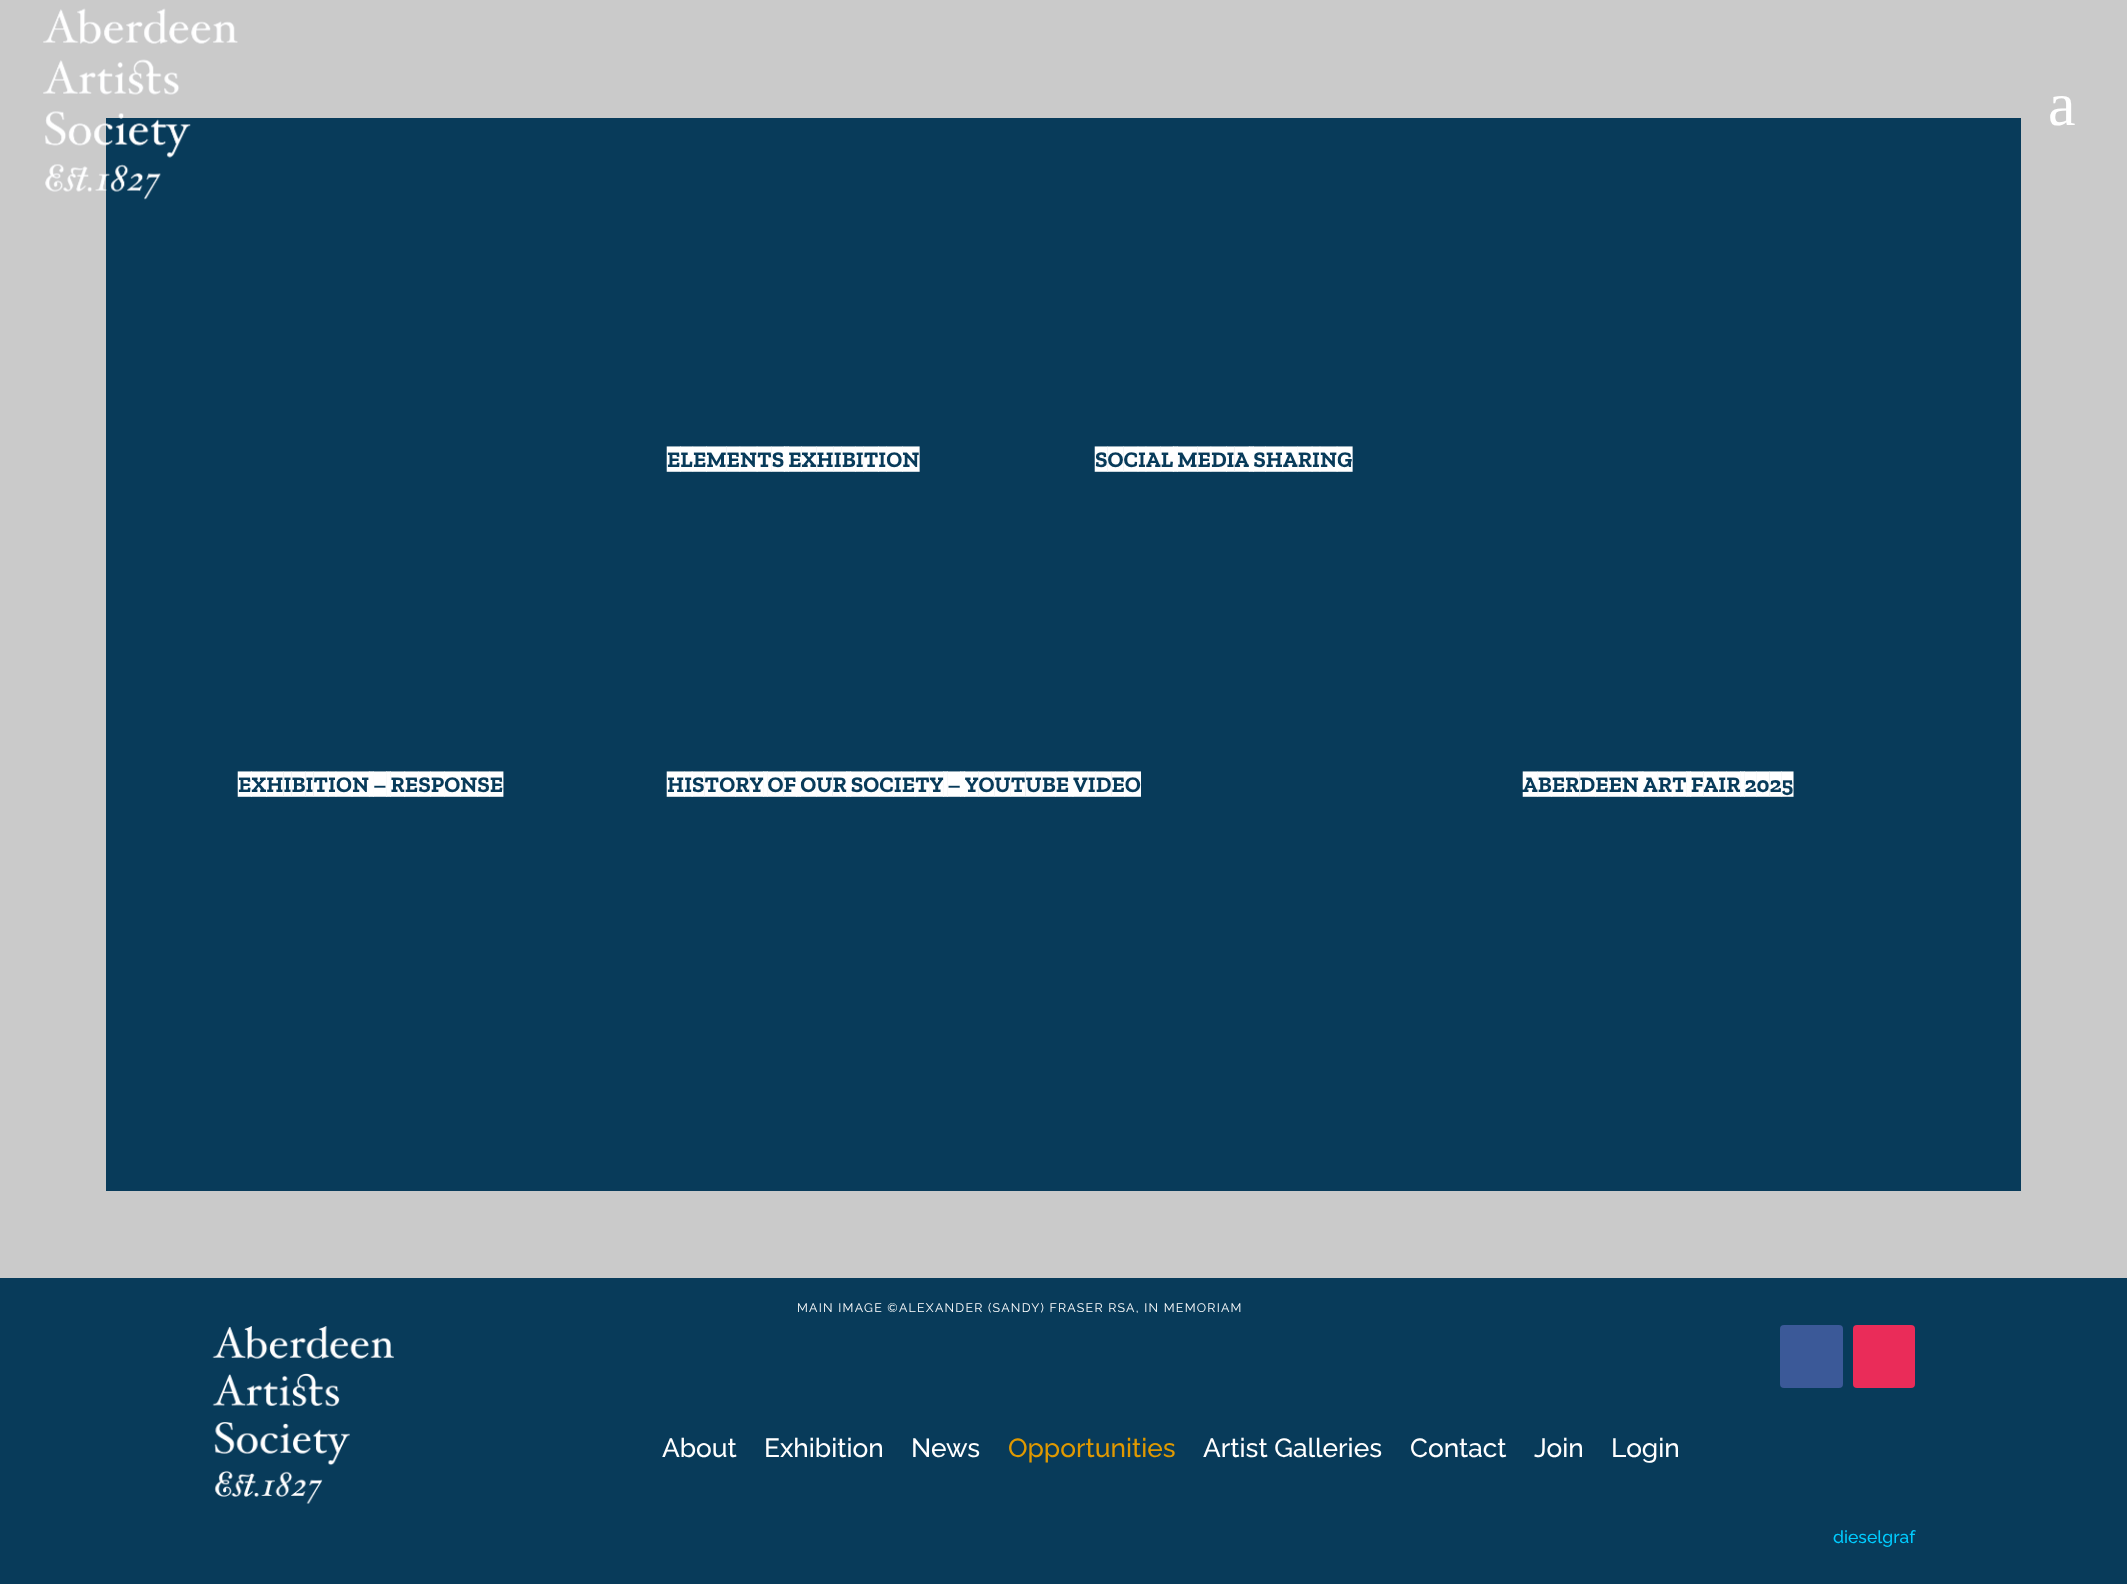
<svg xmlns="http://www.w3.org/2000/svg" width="2127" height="1584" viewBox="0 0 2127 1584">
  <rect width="100%" height="100%" fill="#083b5a"/>
  <rect x="0" y="0" width="2127" height="1278" fill="#cacaca"/>
  <rect x="106" y="118" width="1915" height="1073" fill="#083b5a"/>
  <image x="43" y="8" width="195" height="192" href="img1.png"/>
  <text x="2048" y="125" font-family="Liberation Serif" font-size="62" fill="#ffffff">a</text>
  <text x="667" y="467" font-family="Zilla Slab Highlight" font-size="22.5" font-weight="300" fill="#ffffff">ELEMENTS EXHIBITION</text>
  <text x="1095" y="467" font-family="Zilla Slab Highlight" font-size="22.5" font-weight="300" fill="#ffffff">SOCIAL MEDIA SHARING</text>
  <text x="238" y="792" font-family="Zilla Slab Highlight" font-size="22.5" font-weight="300" fill="#ffffff">EXHIBITION – RESPONSE</text>
  <text x="667" y="792" font-family="Zilla Slab Highlight" font-size="22.5" font-weight="300" fill="#ffffff">HISTORY OF OUR SOCIETY – YOUTUBE VIDEO</text>
  <text x="1523" y="792" font-family="Zilla Slab Highlight" font-size="22.5" font-weight="300" fill="#ffffff">ABERDEEN ART FAIR 2025</text>
  <image x="212" y="1326" width="182" height="178" href="img2.png"/>
  <text x="797" y="1312" font-family="Raleway" font-size="12.4" letter-spacing="1.25" fill="#ffffff">MAIN IMAGE ©ALEXANDER (SANDY) FRASER RSA, IN MEMORIAM</text>
  <rect x="1780" y="1325" width="63" height="63" rx="4" fill="#3b5998"/>
  <rect x="1853" y="1325" width="62" height="63" rx="4" fill="#ea2c59"/>
  <text x="662" y="1457" font-family="Raleway" font-size="26.25" font-weight="500" fill="#ffffff">About</text>
  <text x="764" y="1457" font-family="Raleway" font-size="26.25" font-weight="500" fill="#ffffff">Exhibition</text>
  <text x="911" y="1457" font-family="Raleway" font-size="26.25" font-weight="500" fill="#ffffff">News</text>
  <text x="1008" y="1457" font-family="Raleway" font-size="26.25" font-weight="500" fill="#e09900">Opportunities</text>
  <text x="1203" y="1457" font-family="Raleway" font-size="26.25" font-weight="500" fill="#ffffff">Artist Galleries</text>
  <text x="1410" y="1457" font-family="Raleway" font-size="26.25" font-weight="500" fill="#ffffff">Contact</text>
  <text x="1534" y="1457" font-family="Raleway" font-size="26.25" font-weight="500" fill="#ffffff">Join</text>
  <text x="1611" y="1457" font-family="Raleway" font-size="26.25" font-weight="500" fill="#ffffff">Login</text>
  <text x="1833" y="1543" font-family="Raleway" font-size="17.5" font-weight="500" fill="#00ccff">dieselgraf</text>
</svg>
